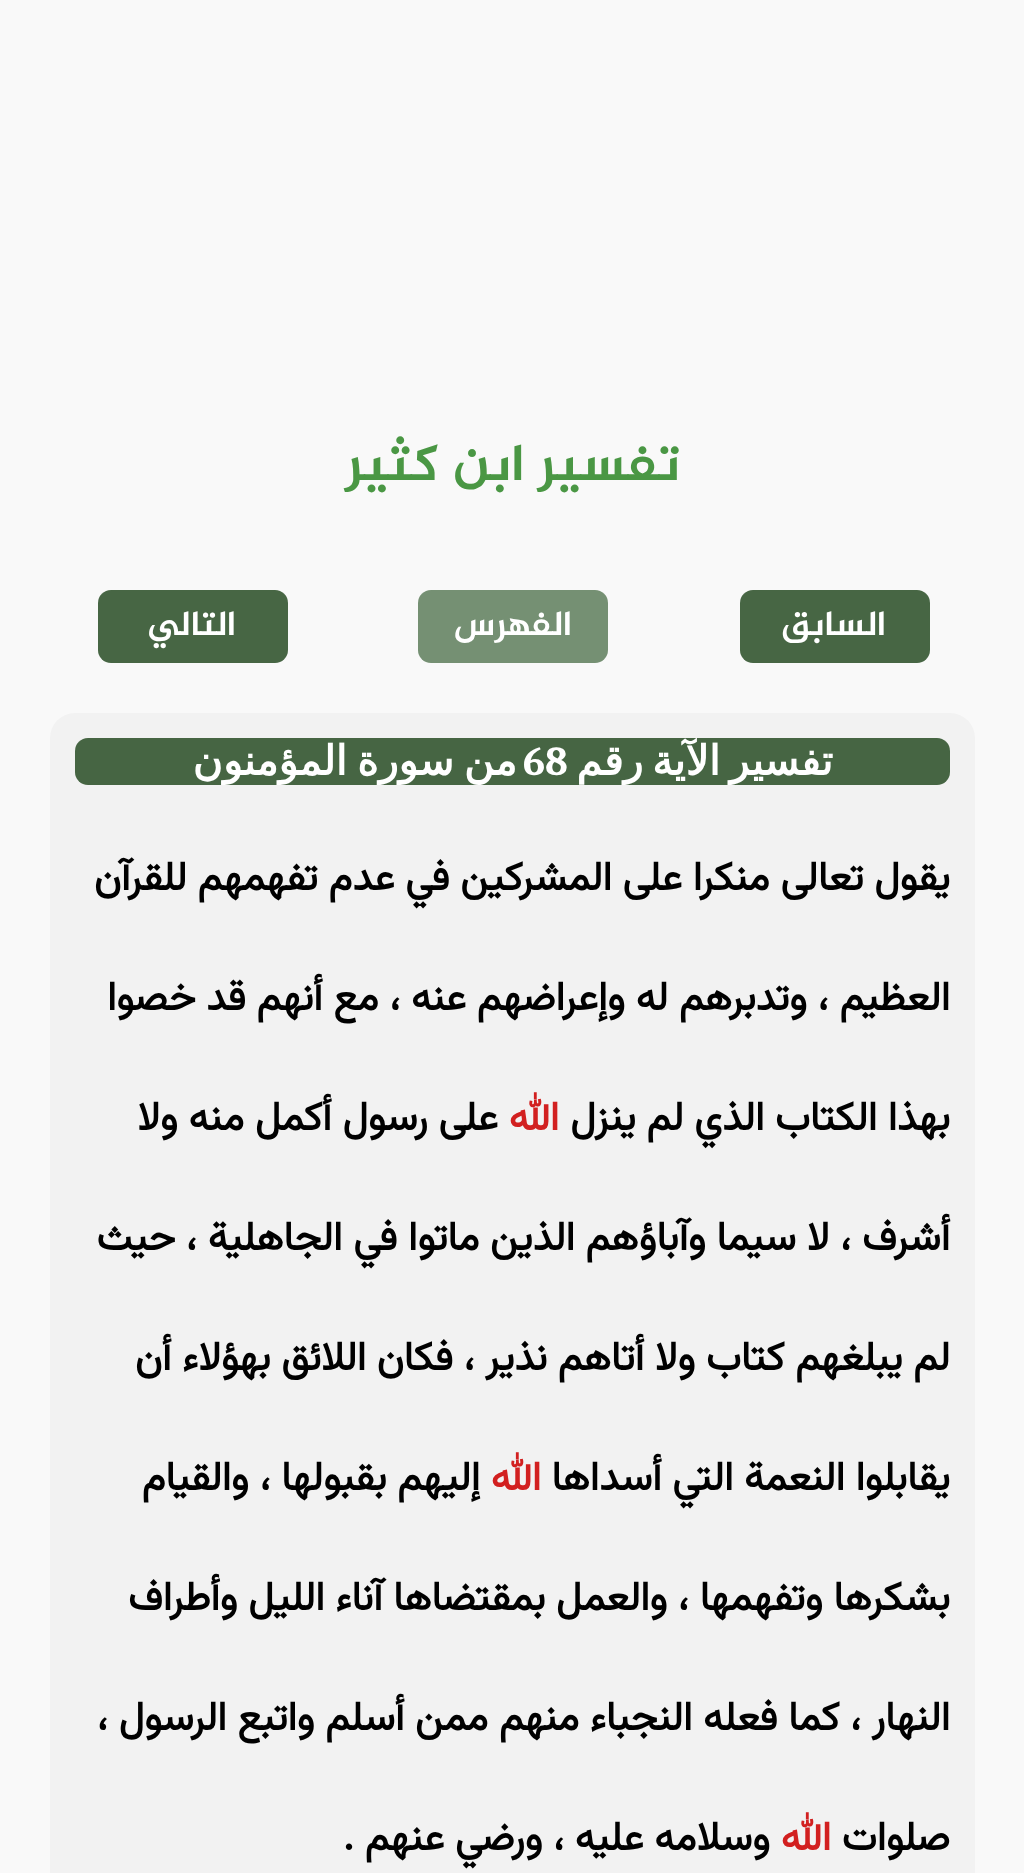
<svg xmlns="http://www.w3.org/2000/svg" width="1024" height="1873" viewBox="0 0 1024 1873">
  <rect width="100%" height="100%" fill="#f9f9f9"/>
  <text x="680" y="480" font-family="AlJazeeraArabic" font-size="52.5" font-weight="bold" direction="rtl" fill="#4a9744">تفسير ابن كثير</text>
  <rect x="740" y="590" width="190" height="73" rx="13" fill="#476644"/>
  <text x="886" y="635" font-family="AlJazeeraArabic" font-size="35" font-weight="bold" direction="rtl" fill="#ffffff">السابق</text>
  <rect x="418" y="590" width="190" height="73" rx="13" fill="#759073"/>
  <text x="572" y="635" font-family="AlJazeeraArabic" font-size="35" font-weight="bold" direction="rtl" fill="#ffffff">الفهرس</text>
  <rect x="98" y="590" width="190" height="73" rx="13" fill="#476644"/>
  <text x="236" y="635" font-family="AlJazeeraArabic" font-size="35" font-weight="bold" direction="rtl" fill="#ffffff">التالي</text>
  <rect x="50" y="713" width="925" height="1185" rx="25" fill="#f2f2f2"/>
  <rect x="75" y="738" width="875" height="47" rx="13" fill="#466543"/>
  <text x="833" y="775" word-spacing="-4" font-family="DejaVu Sans" font-size="41" font-weight="bold" direction="rtl" fill="#ffffff">تفسير الآية رقم</text>
  <text x="523" y="775" font-family="Caladea" font-size="41" font-weight="bold" fill="#ffffff">68</text>
  <text x="517" y="775" word-spacing="-3" font-family="DejaVu Sans" font-size="41" font-weight="bold" direction="rtl" fill="#ffffff">من سورة المؤمنون</text>
  <text x="950" y="890" font-family="Vazirmatn" font-size="40" font-weight="bold" direction="rtl" fill="#000000">يقول تعالى منكرا على المشركين في عدم تفهمهم للقرآن</text>
  <text x="950" y="1010" font-family="Vazirmatn" font-size="40" font-weight="bold" direction="rtl" fill="#000000">العظيم ، وتدبرهم له وإعراضهم عنه ، مع أنهم قد خصوا</text>
  <text x="950" y="1130" font-family="Vazirmatn" font-size="40" font-weight="bold" direction="rtl" fill="#000000">بهذا الكتاب الذي لم ينزل</text>
  <text x="559" y="1130" font-family="Vazirmatn" font-size="40" font-weight="bold" direction="rtl" fill="#d22020">الله</text>
  <text x="498" y="1130" font-family="Vazirmatn" font-size="40" font-weight="bold" direction="rtl" fill="#000000">على رسول أكمل منه ولا</text>
  <text x="950" y="1250" font-family="Vazirmatn" font-size="40" font-weight="bold" direction="rtl" fill="#000000">أشرف ، لا سيما وآباؤهم الذين ماتوا في الجاهلية ، حيث</text>
  <text x="950" y="1370" font-family="Vazirmatn" font-size="40" font-weight="bold" direction="rtl" fill="#000000">لم يبلغهم كتاب ولا أتاهم نذير ، فكان اللائق بهؤلاء أن</text>
  <text x="950" y="1490" font-family="Vazirmatn" font-size="40" font-weight="bold" direction="rtl" fill="#000000">يقابلوا النعمة التي أسداها</text>
  <text x="541" y="1490" font-family="Vazirmatn" font-size="40" font-weight="bold" direction="rtl" fill="#d22020">الله</text>
  <text x="480" y="1490" font-family="Vazirmatn" font-size="40" font-weight="bold" direction="rtl" fill="#000000">إليهم بقبولها ، والقيام</text>
  <text x="950" y="1610" font-family="Vazirmatn" font-size="40" font-weight="bold" direction="rtl" fill="#000000">بشكرها وتفهمها ، والعمل بمقتضاها آناء الليل وأطراف</text>
  <text x="950" y="1730" font-family="Vazirmatn" font-size="40" font-weight="bold" direction="rtl" fill="#000000">النهار ، كما فعله النجباء منهم ممن أسلم واتبع الرسول ،</text>
  <text x="950" y="1850" font-family="Vazirmatn" font-size="40" font-weight="bold" direction="rtl" fill="#000000">صلوات</text>
  <text x="831" y="1850" font-family="Vazirmatn" font-size="40" font-weight="bold" direction="rtl" fill="#d22020">الله</text>
  <text x="770" y="1850" font-family="Vazirmatn" font-size="40" font-weight="bold" direction="rtl" fill="#000000">وسلامه عليه ، ورضي عنهم .</text>
</svg>
